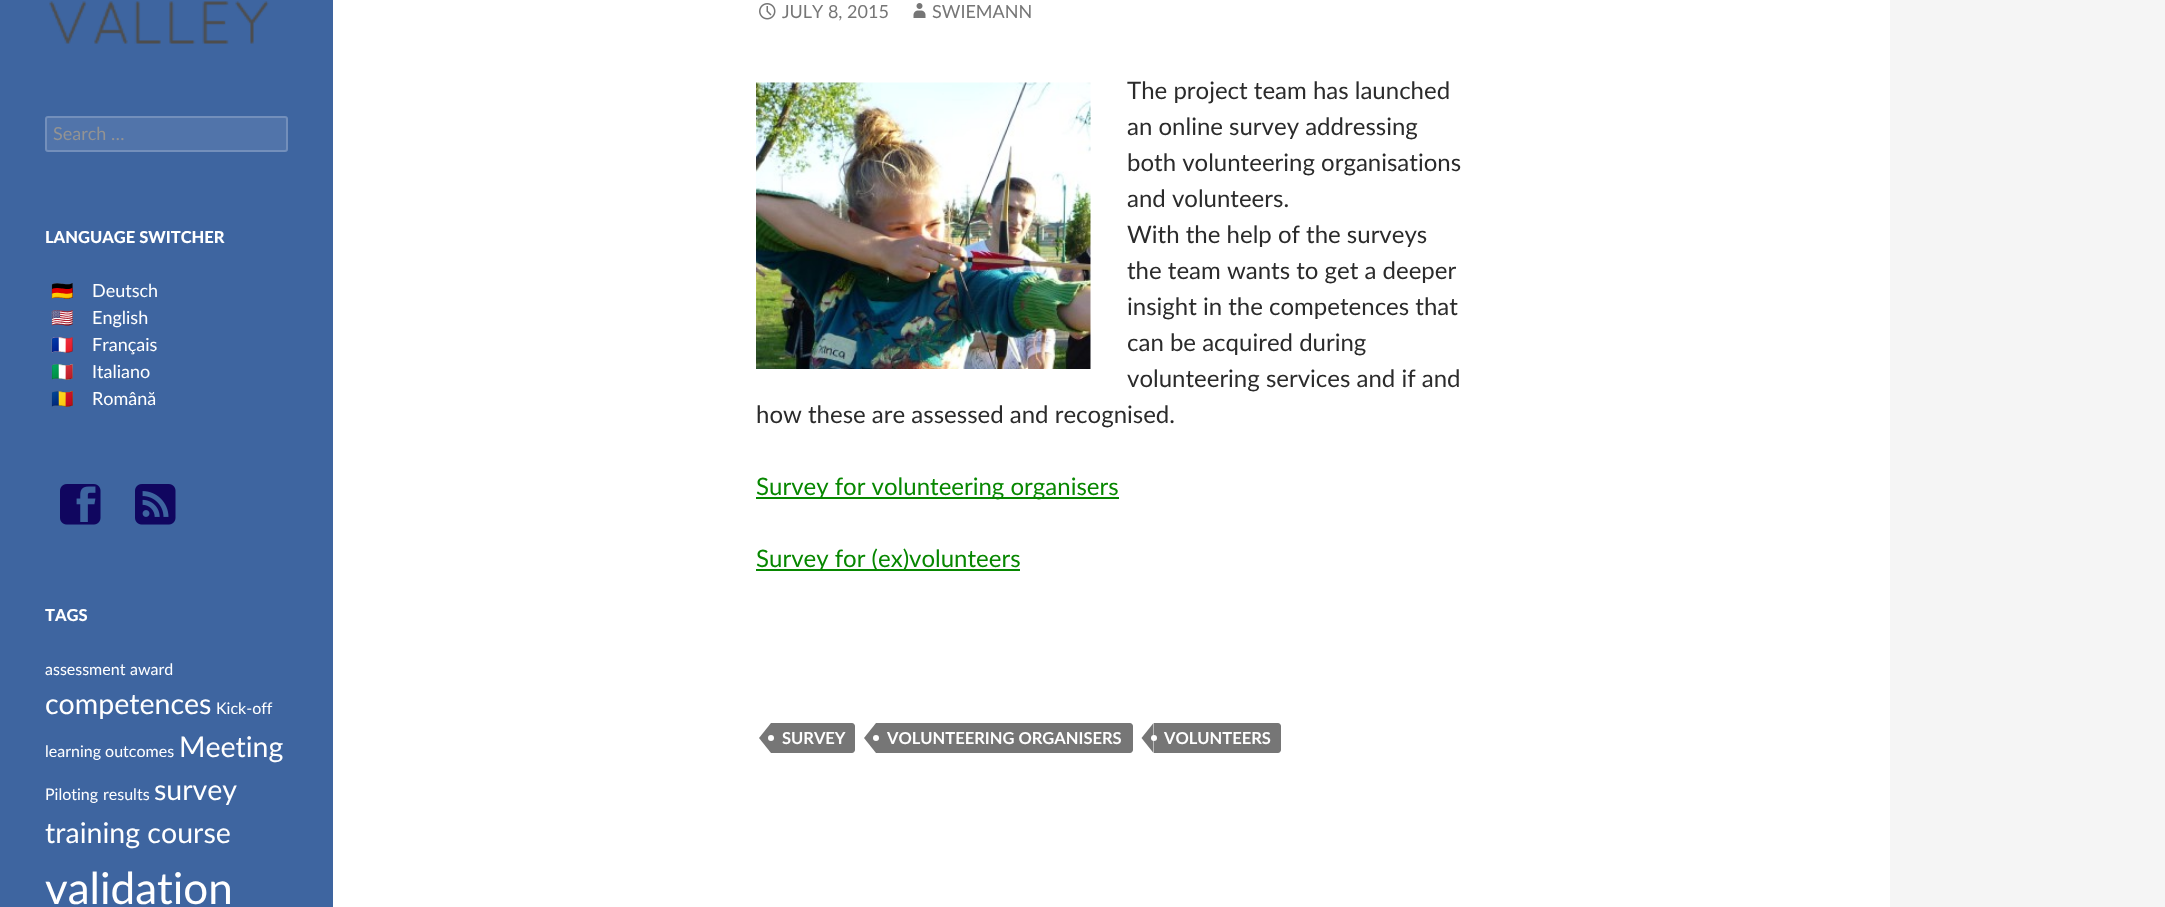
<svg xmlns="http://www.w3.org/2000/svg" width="2165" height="907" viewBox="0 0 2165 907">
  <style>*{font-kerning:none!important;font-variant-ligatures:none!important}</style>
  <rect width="100%" height="100%" fill="#f5f5f5"/>
  <rect x="333" y="0" width="1557" height="907" fill="#ffffff"/>
  <rect x="0" y="0" width="333" height="907" fill="#3e65a0"/>
  <image x="49" y="1" width="220" height="43" href="img1.png"/>
  <rect x="45" y="116" width="243" height="36" rx="3" fill="#5174aa"/>
  <rect x="46" y="117" width="241" height="34" rx="2" fill="none" stroke="#ffffff" stroke-opacity="0.2" stroke-width="2"/>
  <text x="53" y="140" font-family="Lato" font-size="18" fill="#939393">Search …</text>
  <text x="45" y="243" font-family="Lato" font-size="16.5" font-weight="900" fill="#ffffff">LANGUAGE SWITCHER</text>
  <text x="51" y="297" font-family="Noto Color Emoji" font-size="18" fill="#c5d1e3">🇩🇪</text>
  <text x="92" y="297" font-family="Lato" font-size="18" fill="#ffffff">Deutsch</text>
  <text x="51" y="324" font-family="Noto Color Emoji" font-size="18" fill="#c5d1e3">🇺🇸</text>
  <text x="92" y="324" font-family="Lato" font-size="18" fill="#ffffff">English</text>
  <text x="51" y="351" font-family="Noto Color Emoji" font-size="18" fill="#c5d1e3">🇫🇷</text>
  <text x="92" y="351" font-family="Lato" font-size="18" fill="#ffffff">Français</text>
  <text x="51" y="378" font-family="Noto Color Emoji" font-size="18" fill="#c5d1e3">🇮🇹</text>
  <text x="92" y="378" font-family="Lato" font-size="18" fill="#ffffff">Italiano</text>
  <text x="51" y="405" font-family="Noto Color Emoji" font-size="18" fill="#c5d1e3">🇷🇴</text>
  <text x="92" y="405" font-family="Lato" font-size="18" fill="#ffffff">Română</text>
  <image x="60" y="484" width="41" height="41" href="img2.png"/>
  <image x="135" y="484" width="41" height="41" href="img3.png"/>
  <text x="45" y="621" font-family="Lato" font-size="16.5" font-weight="900" fill="#ffffff">TAGS</text>
  <text x="45" y="675" font-family="Lato" font-size="16" fill="#ffffff">assessment</text>
  <text x="130" y="675" font-family="Lato" font-size="16" fill="#ffffff">award</text>
  <text x="45" y="714" font-family="Lato" font-size="28.5" fill="#ffffff">competences</text>
  <text x="216" y="714" font-family="Lato" font-size="16" fill="#ffffff">Kick-off</text>
  <text x="45" y="757" font-family="Lato" font-size="16" fill="#ffffff">learning outcomes</text>
  <text x="179" y="757" font-family="Lato" font-size="28.5" fill="#ffffff">Meeting</text>
  <text x="45" y="800" font-family="Lato" font-size="16" fill="#ffffff">Piloting</text>
  <text x="103" y="800" font-family="Lato" font-size="16" fill="#ffffff">results</text>
  <text x="154" y="800" font-family="Lato" font-size="28.5" fill="#ffffff">survey</text>
  <text x="45" y="843" font-family="Lato" font-size="28.5" fill="#ffffff">training course</text>
  <text x="45" y="904" font-family="Lato" font-size="44" fill="#ffffff">validation</text>
  <image x="759" y="3" width="17" height="17" href="img4.png"/>
  <text x="782" y="18" font-family="Lato" font-size="18" fill="#767676">JULY 8, 2015</text>
  <image x="913" y="3" width="13" height="15" href="img5.png"/>
  <text x="932" y="18" font-family="Lato" font-size="18" fill="#767676">SWIEMANN</text>
  <image x="756" y="82" width="335" height="287" href="img6.png"/>
  <text x="1127" y="99" font-family="Lato" font-size="24" fill="#2b2b2b">The project team has launched</text>
  <text x="1127" y="135" font-family="Lato" font-size="24" fill="#2b2b2b">an online survey addressing</text>
  <text x="1127" y="171" font-family="Lato" font-size="24" fill="#2b2b2b">both volunteering organisations</text>
  <text x="1127" y="207" font-family="Lato" font-size="24" fill="#2b2b2b">and volunteers.</text>
  <text x="1127" y="243" font-family="Lato" font-size="24" fill="#2b2b2b">With the help of the surveys</text>
  <text x="1127" y="279" font-family="Lato" font-size="24" fill="#2b2b2b">the team wants to get a deeper</text>
  <text x="1127" y="315" font-family="Lato" font-size="24" fill="#2b2b2b">insight in the competences that</text>
  <text x="1127" y="351" font-family="Lato" font-size="24" fill="#2b2b2b">can be acquired during</text>
  <text x="1127" y="387" font-family="Lato" font-size="24" fill="#2b2b2b">volunteering services and if and</text>
  <text x="756" y="423" font-family="Lato" font-size="24" fill="#2b2b2b">how these are assessed and recognised.</text>
  <rect x="756" y="497" width="363" height="2" fill="#078700"/>
  <text x="756" y="495" font-family="Lato" font-size="24" fill="#078700">Survey for volunteering organisers</text>
  <rect x="756" y="569" width="264" height="2" fill="#078700"/>
  <text x="756" y="567" font-family="Lato" font-size="24" fill="#078700">Survey for (ex)volunteers</text>
  <path d="M771 723H852C853.5 723 855 724.5 855 726V750C855 751.5 853.5 753 852 753H771Z" fill="#767676"/>
  <path d="M771 723V753L759 738Z" fill="#767676"/>
  <text x="782" y="744" font-family="Lato" font-size="16.5" font-weight="bold" fill="#ffffff">SURVEY</text>
  <circle cx="771" cy="738" r="3" fill="#ffffff"/>
  <path d="M876 723H1130C1131.5 723 1133 724.5 1133 726V750C1133 751.5 1131.5 753 1130 753H876Z" fill="#767676"/>
  <path d="M876 723V753L864 738Z" fill="#767676"/>
  <text x="887" y="744" font-family="Lato" font-size="16.5" font-weight="bold" fill="#ffffff">VOLUNTEERING ORGANISERS</text>
  <circle cx="876" cy="738" r="3" fill="#ffffff"/>
  <path d="M1154 723H1278C1279.5 723 1281 724.5 1281 726V750C1281 751.5 1279.5 753 1278 753H1154Z" fill="#767676"/>
  <path d="M1153.5 723V753L1141.5 738Z" fill="#767676"/>
  <text x="1164" y="744" font-family="Lato" font-size="16.5" font-weight="bold" fill="#ffffff">VOLUNTEERS</text>
  <circle cx="1154" cy="738" r="3" fill="#ffffff"/>
</svg>
